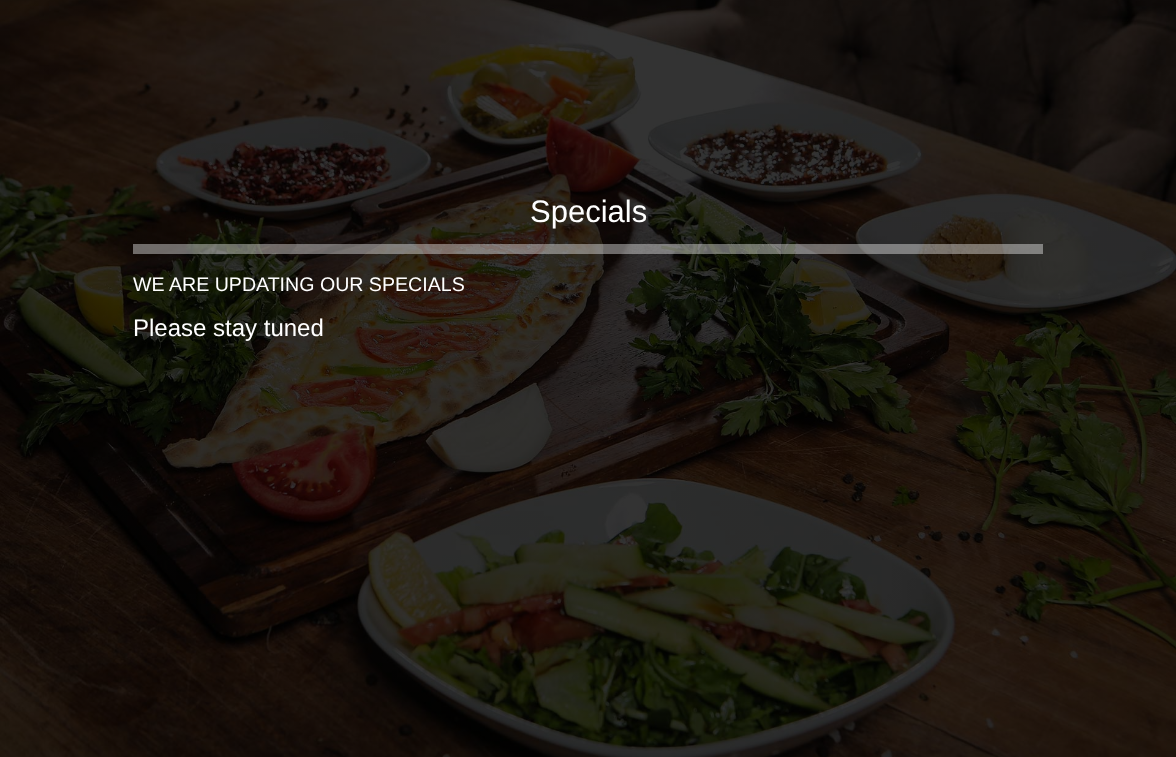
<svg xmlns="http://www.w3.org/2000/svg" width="1176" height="757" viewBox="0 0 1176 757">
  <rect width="100%" height="100%" fill="#ffffff"/>
  <image x="0" y="0" width="1176" height="757" href="img1.png"/>
  <rect x="133" y="244" width="910" height="10" fill="#ffffff" fill-opacity="0.4"/>
  <text x="530" y="222" font-family="Liberation Sans" font-size="31" fill="#ffffff">Specials</text>
  <text x="133" y="291" font-family="Liberation Sans" font-size="19.6" fill="#ffffff">WE ARE UPDATING OUR SPECIALS</text>
  <text x="133" y="336" font-family="Liberation Sans" font-size="24" fill="#ffffff">Please stay tuned</text>
</svg>
